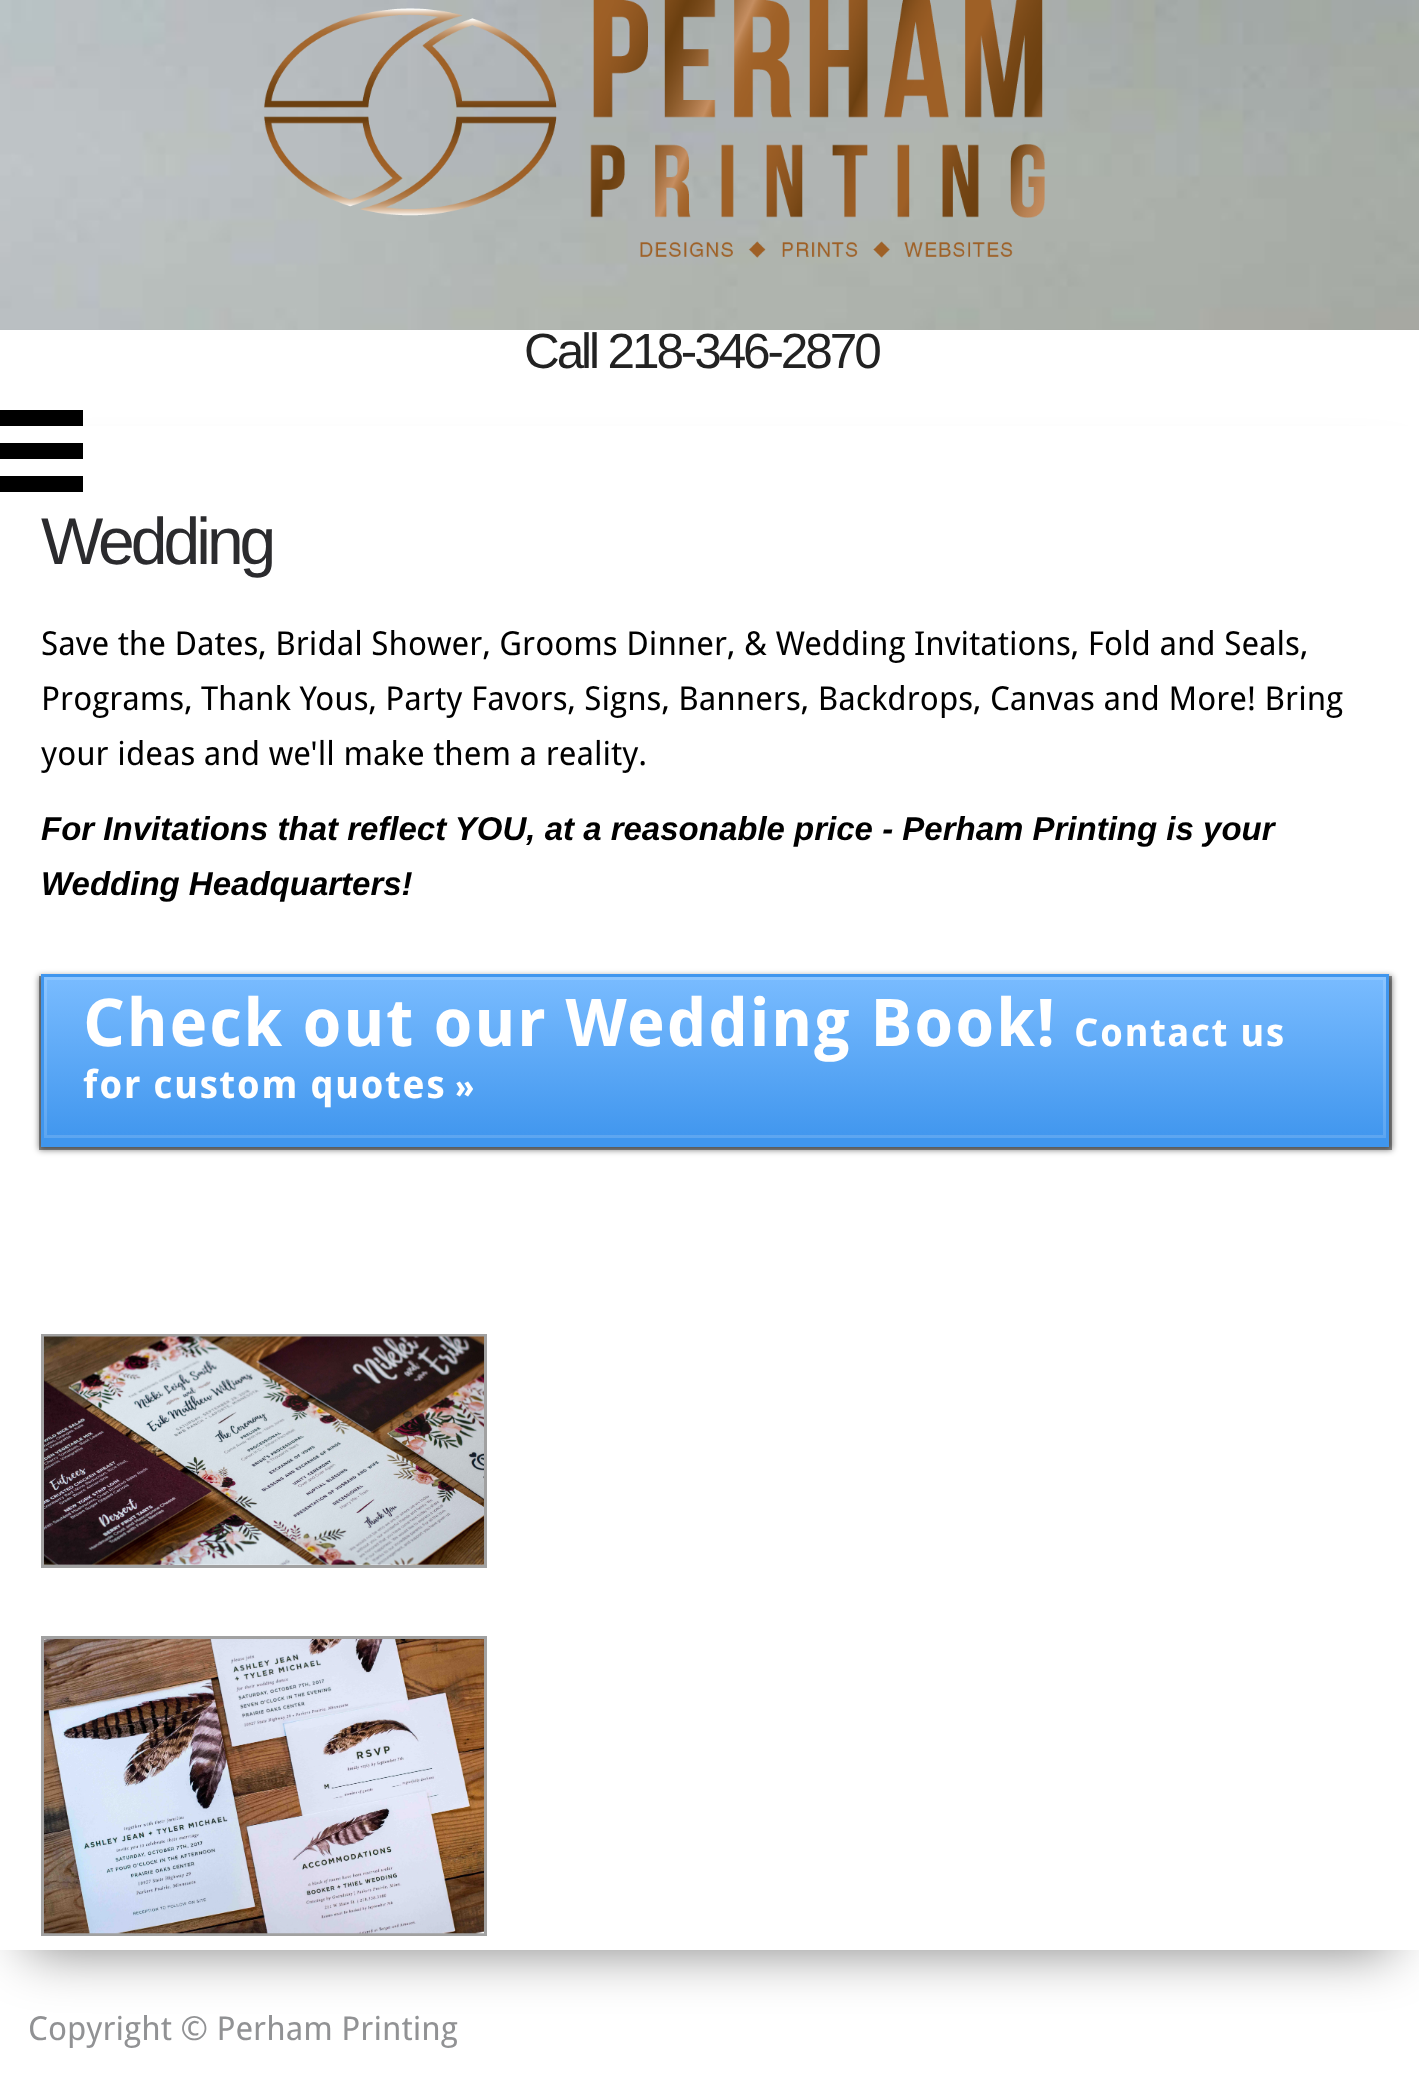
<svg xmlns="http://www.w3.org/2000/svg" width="1419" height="2078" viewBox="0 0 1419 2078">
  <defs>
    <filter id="blur1" x="-50%" y="-200%" width="200%" height="500%"><feGaussianBlur stdDeviation="27.5"/></filter>
    <filter id="blur2" x="-50%" y="-200%" width="200%" height="500%"><feGaussianBlur stdDeviation="3"/></filter>
    <linearGradient id="g1" gradientUnits="userSpaceOnUse" x1="715" y1="974" x2="715" y2="1141"><stop offset="0" stop-color="#7abcff"/><stop offset="1" stop-color="#4096ee"/></linearGradient>
  </defs>
  <rect width="100%" height="100%" fill="#ffffff"/>
  <image x="0" y="0" width="1419" height="330" href="img1.png"/>
  <image x="264" y="0" width="781" height="258" href="img2.png"/>
  <text x="524" y="368" font-family="Liberation Sans" font-size="49.5" letter-spacing="-3.1" fill="#222222">Call 218-346-2870</text>
  <rect x="28" y="481" width="1364" height="1469" fill="#000000" fill-opacity="0.5" filter="url(#blur1)"/>
  <rect x="0" y="410" width="83" height="16" fill="#000000"/>
  <rect x="0" y="426" width="1419" height="1524" fill="#ffffff"/>
  <rect x="0" y="476" width="83" height="16" fill="#000000"/>
  <rect x="0" y="443" width="83" height="16" fill="#000000"/>
  <text x="41" y="564" font-family="Liberation Sans" font-size="66" letter-spacing="-4" fill="#2b2b2e">Wedding</text>
  <text x="41" y="655" font-family="Droid Sans" font-size="33" fill="#000000">Save the Dates, Bridal Shower, Grooms Dinner, &amp; Wedding Invitations, Fold and Seals,</text>
  <text x="41" y="710" font-family="Droid Sans" font-size="33" fill="#000000">Programs, Thank Yous, Party Favors, Signs, Banners, Backdrops, Canvas and More! Bring</text>
  <text x="41" y="765" font-family="Droid Sans" font-size="33" fill="#000000">your ideas and we'll make them a reality.</text>
  <text x="41" y="840" font-family="Liberation Sans" font-size="33" font-weight="bold" font-style="italic" fill="#000000">For Invitations that reflect YOU, at a reasonable price - Perham Printing is your</text>
  <text x="41" y="895" font-family="Liberation Sans" font-size="33" font-weight="bold" font-style="italic" fill="#000000">Wedding Headquarters!</text>
  <rect x="39" y="976" width="1353" height="174" fill="#000000" fill-opacity="0.5" filter="url(#blur2)"/>
  <path d="M39 976V1150H1392V976H1389V1141H41V976Z" fill="#000000" fill-opacity="0.4"/>
  <path d="M41 979V1147H1389V979V1141H41Z" fill="#4096ee"/>
  <rect x="44" y="977" width="1342" height="161" fill="url(#g1)"/>
  <rect x="44" y="977" width="1342" height="161" fill="none" stroke="#ffffff" stroke-opacity="0.15" stroke-width="6"/>
  <rect x="42.5" y="975.5" width="1345" height="164" fill="none" stroke="#4096ee" stroke-width="3"/>
  <text x="83" y="1046" font-family="Droid Sans" font-size="66" font-weight="bold" letter-spacing="1.4" fill="#ffffff">Check out our Wedding Book!</text>
  <text x="1074" y="1046" font-family="Droid Sans" font-size="38.5" font-weight="bold" letter-spacing="1.4" fill="#ffffff">Contact us</text>
  <text x="83" y="1098" font-family="Droid Sans" font-size="38.5" font-weight="bold" letter-spacing="1.4" fill="#ffffff">for custom quotes</text>
  <text x="455" y="1098" font-family="Droid Sans" font-size="33" font-weight="bold" letter-spacing="1.4" fill="#ffffff">»</text>
  <rect x="42.5" y="1335.5" width="443" height="231" fill="none" stroke="#a1a1a1" stroke-width="3"/>
  <image x="44" y="1336" width="440" height="229" href="img3.png"/>
  <rect x="42.5" y="1637.5" width="443" height="297" fill="none" stroke="#a1a1a1" stroke-width="3"/>
  <image x="44" y="1639" width="440" height="295" href="img4.png"/>
  <text x="28" y="2040" font-family="Droid Sans" font-size="33" fill="#919294">Copyright © Perham Printing</text>
</svg>
